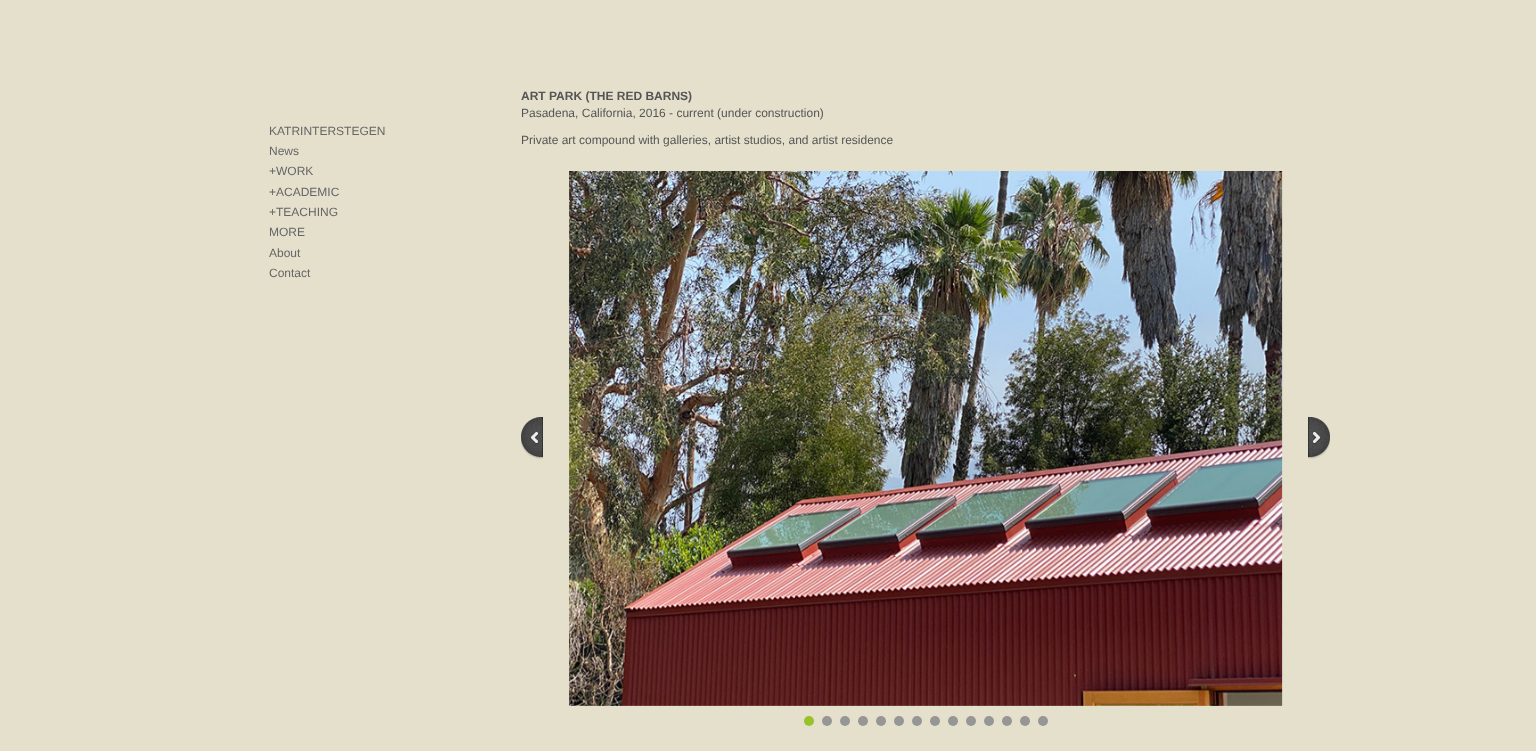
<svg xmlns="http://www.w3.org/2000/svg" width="1536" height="751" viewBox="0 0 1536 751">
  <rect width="100%" height="100%" fill="#e5e0cc"/>
  <text x="521" y="100" font-family="Liberation Sans" font-size="12" font-weight="bold" fill="#555555">ART PARK (THE RED BARNS)</text>
  <text x="269" y="135" font-family="Liberation Sans" font-size="12" fill="#666666">KATRINTERSTEGEN</text>
  <text x="269" y="155" font-family="Liberation Sans" font-size="12" fill="#666666">News</text>
  <text x="269" y="175" font-family="Liberation Sans" font-size="12" fill="#666666">+WORK</text>
  <text x="269" y="196" font-family="Liberation Sans" font-size="12" fill="#666666">+ACADEMIC</text>
  <text x="269" y="216" font-family="Liberation Sans" font-size="12" fill="#666666">+TEACHING</text>
  <text x="269" y="236" font-family="Liberation Sans" font-size="12" fill="#666666">MORE</text>
  <text x="269" y="257" font-family="Liberation Sans" font-size="12" fill="#666666">About</text>
  <text x="269" y="277" font-family="Liberation Sans" font-size="12" fill="#666666">Contact</text>
  <text x="521" y="117" font-family="Liberation Sans" font-size="12" fill="#555555">Pasadena, California, 2016 - current (under construction)</text>
  <text x="521" y="144" font-family="Liberation Sans" font-size="12" fill="#555555">Private art compound with galleries, artist studios, and artist residence</text>
  <image x="521" y="417" width="22" height="42" href="img1.png"/>
  <image x="569" y="171" width="714" height="535" href="img2.png"/>
  <image x="1308" y="417" width="22" height="42" href="img3.png"/>
  <circle cx="809" cy="721" r="5" fill="#98c22a"/>
  <circle cx="827" cy="721" r="5" fill="#969696"/>
  <circle cx="845" cy="721" r="5" fill="#969696"/>
  <circle cx="863" cy="721" r="5" fill="#969696"/>
  <circle cx="881" cy="721" r="5" fill="#969696"/>
  <circle cx="899" cy="721" r="5" fill="#969696"/>
  <circle cx="917" cy="721" r="5" fill="#969696"/>
  <circle cx="935" cy="721" r="5" fill="#969696"/>
  <circle cx="953" cy="721" r="5" fill="#969696"/>
  <circle cx="971" cy="721" r="5" fill="#969696"/>
  <circle cx="989" cy="721" r="5" fill="#969696"/>
  <circle cx="1007" cy="721" r="5" fill="#969696"/>
  <circle cx="1025" cy="721" r="5" fill="#969696"/>
  <circle cx="1043" cy="721" r="5" fill="#969696"/>
</svg>
